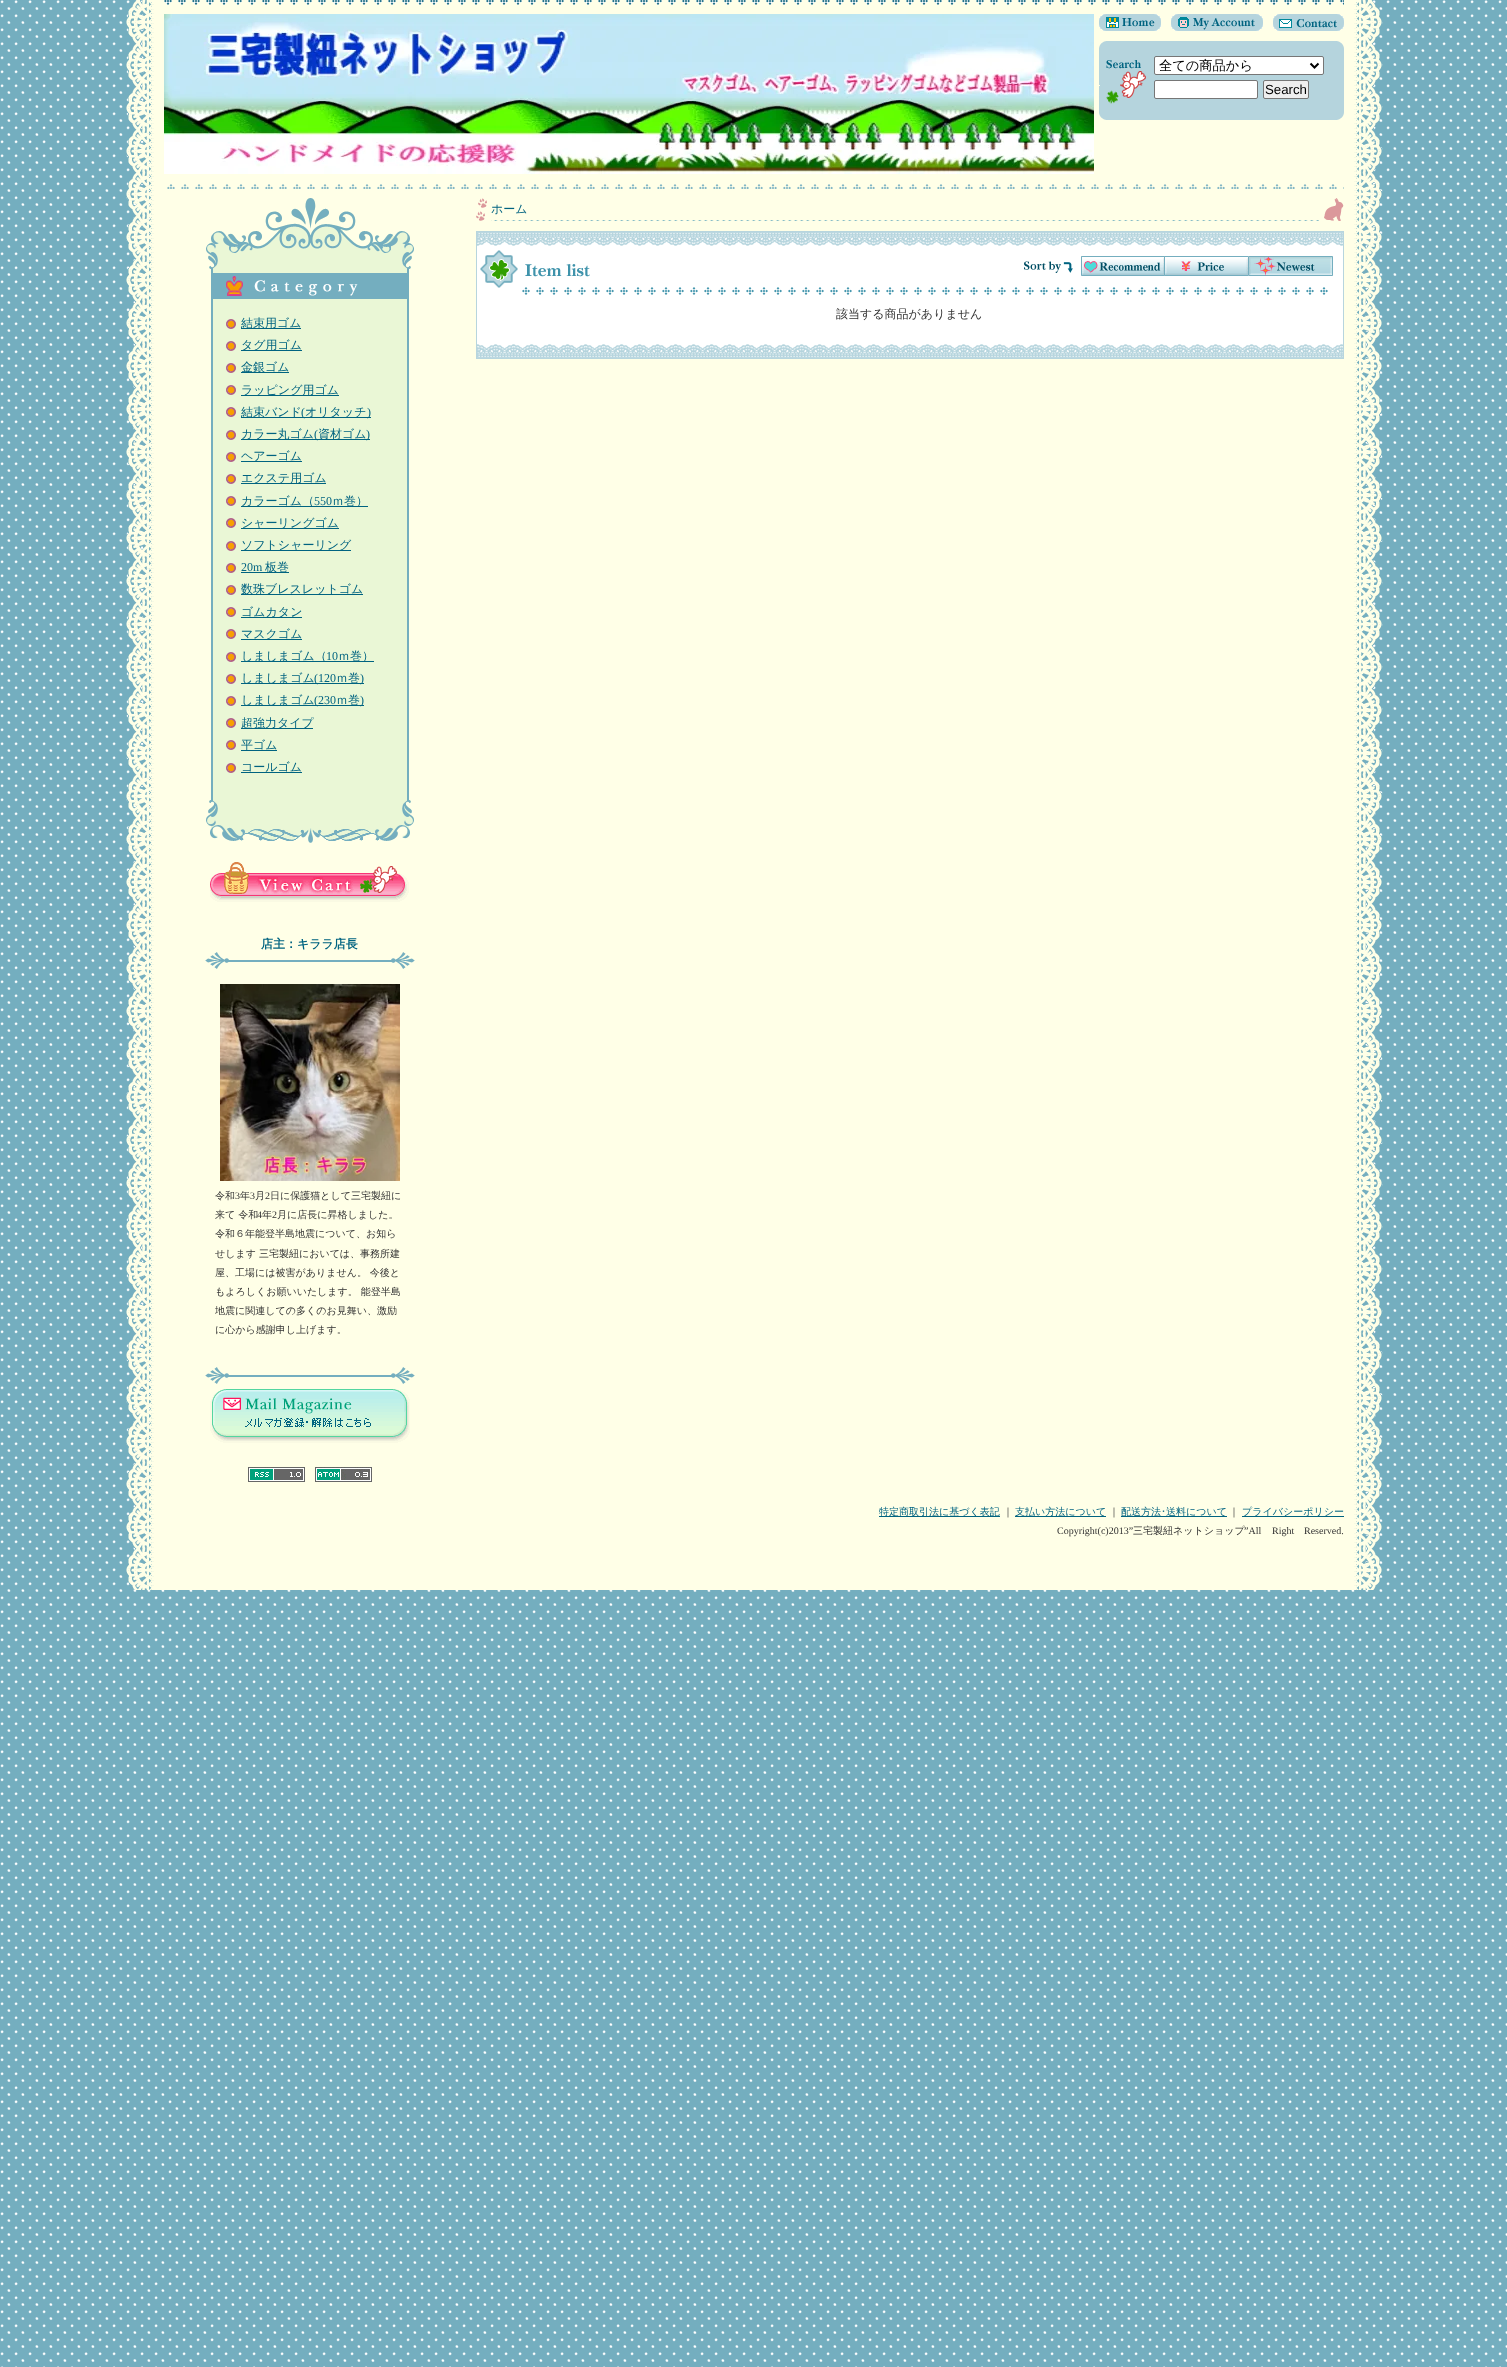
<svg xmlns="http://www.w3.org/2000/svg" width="1507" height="2367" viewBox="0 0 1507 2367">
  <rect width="100%" height="100%" fill="#ffffff"/>
  <image x="0" y="0" width="1507" height="2367" href="img1.png"/>
  <image x="126" y="0" width="28" height="1590" href="img2.png"/>
  <rect x="154" y="0" width="1200" height="198" fill="#ffffe7"/>
  <image x="164" y="0" width="1180" height="5" href="img3.png"/>
  <image x="164" y="14" width="930" height="160" href="img4.png"/>
  <image x="1099" y="14" width="62" height="17" href="img5.png"/>
  <image x="1171" y="14" width="92" height="17" href="img6.png"/>
  <image x="1273" y="14" width="71" height="17" href="img7.png"/>
  <image x="1099" y="41" width="245" height="79" href="img8.png"/>
  <rect x="1154.5" y="56.5" width="169" height="18" rx="1.5" fill="#ffffff" stroke="#767676"/>
  <path d="M1310.5 63.5L1314.5 67.5L1318.5 63.5" fill="none" stroke="#000000" stroke-width="2"/>
  <text x="1159" y="70" font-family="WenQuanYi Zen Hei" font-size="13.25" font-weight="500" fill="#000000">全ての商品から</text>
  <rect x="1154.5" y="80.5" width="103" height="18" rx="1.5" fill="#ffffff" stroke="#767676"/>
  <rect x="1263.5" y="80.5" width="45" height="18" rx="1.5" fill="#efefef" stroke="#767676"/>
  <text x="1265" y="94" font-family="Liberation Sans" font-size="13.25" fill="#000000">Search</text>
  <image x="167" y="184" width="1177" height="5" href="img9.png"/>
  <image x="1354" y="0" width="28" height="1590" href="img10.png"/>
  <rect x="154" y="198" width="1200" height="1392" fill="#ffffe7"/>
  <image x="476" y="198" width="11" height="23" href="img11.png"/>
  <image x="491" y="220" width="828" height="1" href="img12.png"/>
  <text x="491" y="213" font-family="WenQuanYi Zen Hei" font-size="12" font-weight="500" fill="#006380">ホーム</text>
  <image x="1324" y="198" width="20" height="23" href="img13.png"/>
  <rect x="477" y="242" width="866" height="106" fill="#ffffff"/>
  <image x="480" y="250" width="38" height="38" href="img14.png"/>
  <rect x="476.5" y="231.5" width="867" height="127" fill="none" stroke="#b7d5de"/>
  <image x="477" y="232" width="866" height="14" href="img15.png"/>
  <image x="522" y="287" width="806" height="8" href="img16.png"/>
  <image x="525" y="264" width="65" height="13" href="img17.png"/>
  <image x="1024" y="261" width="49" height="12" href="img18.png"/>
  <image x="1081" y="256" width="84" height="20" href="img19.png"/>
  <image x="1165" y="256" width="84" height="20" href="img20.png"/>
  <image x="1249" y="256" width="84" height="20" href="img21.png"/>
  <text x="836" y="318" font-family="WenQuanYi Zen Hei" font-size="12" font-weight="500" fill="#333333">該当する商品がありません</text>
  <image x="477" y="344" width="866" height="14" href="img22.png"/>
  <image x="206" y="198" width="208" height="75" href="img23.png"/>
  <rect x="213" y="299" width="194" height="501" fill="#eaf7d6"/>
  <rect x="407" y="273" width="2" height="527" fill="#74aebf"/>
  <rect x="211" y="273" width="2" height="527" fill="#74aebf"/>
  <rect x="213" y="273" width="194" height="26" fill="#74aebf"/>
  <image x="226" y="276" width="132" height="20" href="img24.png"/>
  <image x="226" y="319" width="10" height="10" href="img25.png"/>
  <rect x="241" y="328" width="60" height="1" fill="#006380"/>
  <text x="241" y="327" font-family="WenQuanYi Zen Hei" font-size="12" font-weight="500" fill="#006380">結束用ゴム</text>
  <image x="226" y="341" width="10" height="10" href="img25.png"/>
  <rect x="241" y="350" width="61" height="1" fill="#006380"/>
  <text x="241" y="349" font-family="WenQuanYi Zen Hei" font-size="12" font-weight="500" fill="#006380">タグ用ゴム</text>
  <image x="226" y="363" width="10" height="10" href="img25.png"/>
  <rect x="241" y="372" width="48" height="1" fill="#006380"/>
  <text x="241" y="371" font-family="WenQuanYi Zen Hei" font-size="12" font-weight="500" fill="#006380">金銀ゴム</text>
  <image x="226" y="385" width="10" height="10" href="img25.png"/>
  <rect x="241" y="395" width="98" height="1" fill="#006380"/>
  <text x="241" y="394" font-family="WenQuanYi Zen Hei" font-size="12" font-weight="500" fill="#006380">ラッピング用ゴム</text>
  <image x="226" y="407" width="10" height="10" href="img25.png"/>
  <rect x="241" y="417" width="130" height="1" fill="#006380"/>
  <text x="241" y="416" font-family="WenQuanYi Zen Hei" font-size="12" font-weight="500" fill="#006380">結束バンド</text>
  <text x="301" y="416" font-family="Liberation Serif" font-size="12" fill="#006380">(</text>
  <text x="305" y="416" font-family="WenQuanYi Zen Hei" font-size="12" font-weight="500" fill="#006380">オリタッチ</text>
  <text x="367" y="416" font-family="Liberation Serif" font-size="12" fill="#006380">)</text>
  <image x="226" y="430" width="10" height="10" href="img25.png"/>
  <rect x="241" y="439" width="129" height="1" fill="#006380"/>
  <text x="241" y="438" font-family="WenQuanYi Zen Hei" font-size="12" font-weight="500" fill="#006380">カラー丸ゴム</text>
  <text x="314" y="438" font-family="Liberation Serif" font-size="12" fill="#006380">(</text>
  <text x="318" y="438" font-family="WenQuanYi Zen Hei" font-size="12" font-weight="500" fill="#006380">資材ゴム</text>
  <text x="366" y="438" font-family="Liberation Serif" font-size="12" fill="#006380">)</text>
  <image x="226" y="452" width="10" height="10" href="img25.png"/>
  <text x="241" y="460" font-family="WenQuanYi Zen Hei" font-size="12" font-weight="500" fill="#006380">ヘアーゴム</text>
  <rect x="241" y="461" width="61" height="1" fill="#006380"/>
  <image x="226" y="474" width="10" height="10" href="img25.png"/>
  <rect x="241" y="483" width="85" height="1" fill="#006380"/>
  <text x="241" y="482" font-family="WenQuanYi Zen Hei" font-size="12" font-weight="500" fill="#006380">エクステ用ゴム</text>
  <image x="226" y="496" width="10" height="10" href="img25.png"/>
  <rect x="241" y="506" width="127" height="1" fill="#006380"/>
  <text x="241" y="505" font-family="WenQuanYi Zen Hei" font-size="12" font-weight="500" fill="#006380">カラーゴム（</text>
  <text x="314" y="505" font-family="Liberation Serif" font-size="12" fill="#006380">550</text>
  <text x="332" y="505" font-family="WenQuanYi Zen Hei" font-size="12" font-weight="500" fill="#006380">ｍ巻）</text>
  <image x="226" y="518" width="10" height="10" href="img25.png"/>
  <rect x="241" y="528" width="98" height="1" fill="#006380"/>
  <text x="241" y="527" font-family="WenQuanYi Zen Hei" font-size="12" font-weight="500" fill="#006380">シャーリングゴム</text>
  <image x="226" y="541" width="10" height="10" href="img25.png"/>
  <rect x="241" y="550" width="110" height="1" fill="#006380"/>
  <text x="241" y="549" font-family="WenQuanYi Zen Hei" font-size="12" font-weight="500" fill="#006380">ソフトシャーリング</text>
  <image x="226" y="563" width="10" height="10" href="img25.png"/>
  <text x="241" y="571" font-family="Liberation Serif" font-size="12" fill="#006380">20m</text>
  <rect x="241" y="572" width="48" height="1" fill="#006380"/>
  <text x="265" y="571" font-family="WenQuanYi Zen Hei" font-size="12" font-weight="500" fill="#006380">板巻</text>
  <image x="226" y="585" width="10" height="10" href="img25.png"/>
  <rect x="241" y="594" width="122" height="1" fill="#006380"/>
  <text x="241" y="593" font-family="WenQuanYi Zen Hei" font-size="12" font-weight="500" fill="#006380">数珠ブレスレットゴム</text>
  <image x="226" y="607" width="10" height="10" href="img25.png"/>
  <rect x="241" y="617" width="61" height="1" fill="#006380"/>
  <text x="241" y="616" font-family="WenQuanYi Zen Hei" font-size="12" font-weight="500" fill="#006380">ゴムカタン</text>
  <image x="226" y="629" width="10" height="10" href="img25.png"/>
  <rect x="241" y="639" width="61" height="1" fill="#006380"/>
  <text x="241" y="638" font-family="WenQuanYi Zen Hei" font-size="12" font-weight="500" fill="#006380">マスクゴム</text>
  <image x="226" y="652" width="10" height="10" href="img25.png"/>
  <rect x="241" y="661" width="133" height="1" fill="#006380"/>
  <text x="241" y="660" font-family="WenQuanYi Zen Hei" font-size="12" font-weight="500" fill="#006380">しましまゴム（</text>
  <text x="326" y="660" font-family="Liberation Serif" font-size="12" fill="#006380">10</text>
  <text x="338" y="660" font-family="WenQuanYi Zen Hei" font-size="12" font-weight="500" fill="#006380">ｍ巻）</text>
  <image x="226" y="674" width="10" height="10" href="img25.png"/>
  <rect x="241" y="683" width="123" height="1" fill="#006380"/>
  <text x="241" y="682" font-family="WenQuanYi Zen Hei" font-size="12" font-weight="500" fill="#006380">しましまゴム</text>
  <text x="314" y="682" font-family="Liberation Serif" font-size="12" fill="#006380">(120</text>
  <text x="336" y="682" font-family="WenQuanYi Zen Hei" font-size="12" font-weight="500" fill="#006380">ｍ巻</text>
  <text x="360" y="682" font-family="Liberation Serif" font-size="12" fill="#006380">)</text>
  <image x="226" y="696" width="10" height="10" href="img25.png"/>
  <rect x="241" y="705" width="123" height="1" fill="#006380"/>
  <text x="241" y="704" font-family="WenQuanYi Zen Hei" font-size="12" font-weight="500" fill="#006380">しましまゴム</text>
  <text x="314" y="704" font-family="Liberation Serif" font-size="12" fill="#006380">(230</text>
  <text x="336" y="704" font-family="WenQuanYi Zen Hei" font-size="12" font-weight="500" fill="#006380">ｍ巻</text>
  <text x="360" y="704" font-family="Liberation Serif" font-size="12" fill="#006380">)</text>
  <image x="226" y="718" width="10" height="10" href="img25.png"/>
  <rect x="241" y="728" width="72" height="1" fill="#006380"/>
  <text x="241" y="727" font-family="WenQuanYi Zen Hei" font-size="12" font-weight="500" fill="#006380">超強力タイプ</text>
  <image x="226" y="740" width="10" height="10" href="img25.png"/>
  <rect x="241" y="750" width="36" height="1" fill="#006380"/>
  <text x="241" y="749" font-family="WenQuanYi Zen Hei" font-size="12" font-weight="500" fill="#006380">平ゴム</text>
  <image x="226" y="763" width="10" height="10" href="img25.png"/>
  <text x="241" y="771" font-family="WenQuanYi Zen Hei" font-size="12" font-weight="500" fill="#006380">コールゴム</text>
  <rect x="241" y="772" width="61" height="1" fill="#006380"/>
  <image x="206" y="800" width="208" height="43" href="img26.png"/>
  <image x="210" y="862" width="199" height="40" href="img27.png"/>
  <image x="205" y="1367" width="210" height="17" href="img28.png"/>
  <image x="205" y="952" width="210" height="17" href="img28.png"/>
  <text x="261" y="948" font-family="WenQuanYi Zen Hei" font-size="12" font-weight="bold" fill="#006380">店主：キララ店長</text>
  <image x="220" y="984" width="180" height="197" href="img29.png"/>
  <text x="215" y="1199" font-family="WenQuanYi Zen Hei" font-size="10" font-weight="500" fill="#333333">令和</text>
  <text x="235" y="1199" font-family="Liberation Serif" font-size="10" fill="#333333">3</text>
  <text x="240" y="1199" font-family="WenQuanYi Zen Hei" font-size="10" font-weight="500" fill="#333333">年</text>
  <text x="250" y="1199" font-family="Liberation Serif" font-size="10" fill="#333333">3</text>
  <text x="255" y="1199" font-family="WenQuanYi Zen Hei" font-size="10" font-weight="500" fill="#333333">月</text>
  <text x="265" y="1199" font-family="Liberation Serif" font-size="10" fill="#333333">2</text>
  <text x="270" y="1199" font-family="WenQuanYi Zen Hei" font-size="10" font-weight="500" fill="#333333">日に保護猫として三宅製紐に</text>
  <text x="215" y="1218" font-family="WenQuanYi Zen Hei" font-size="10" font-weight="500" fill="#333333">来て 令和</text>
  <text x="257" y="1218" font-family="Liberation Serif" font-size="10" fill="#333333">4</text>
  <text x="262" y="1218" font-family="WenQuanYi Zen Hei" font-size="10" font-weight="500" fill="#333333">年</text>
  <text x="272" y="1218" font-family="Liberation Serif" font-size="10" fill="#333333">2</text>
  <text x="277" y="1218" font-family="WenQuanYi Zen Hei" font-size="10" font-weight="500" fill="#333333">月に店長に昇格しました。</text>
  <text x="215" y="1237" font-family="WenQuanYi Zen Hei" font-size="10" font-weight="500" fill="#333333">令和６年能登半島地震について、お知ら</text>
  <text x="215" y="1257" font-family="WenQuanYi Zen Hei" font-size="10" font-weight="500" fill="#333333">せします 三宅製紐においては、事務所建</text>
  <text x="215" y="1276" font-family="WenQuanYi Zen Hei" font-size="10" font-weight="500" fill="#333333">屋、工場には被害がありません。 今後と</text>
  <text x="215" y="1295" font-family="WenQuanYi Zen Hei" font-size="10" font-weight="500" fill="#333333">もよろしくお願いいたします。 能登半島</text>
  <text x="215" y="1314" font-family="WenQuanYi Zen Hei" font-size="10" font-weight="500" fill="#333333">地震に関連しての多くのお見舞い、激励</text>
  <text x="215" y="1333" font-family="WenQuanYi Zen Hei" font-size="10" font-weight="500" fill="#333333">に心から感謝申し上げます。</text>
  <image x="210" y="1389" width="200" height="54" href="img30.png"/>
  <image x="248" y="1467" width="57" height="15" href="img31.png"/>
  <image x="315" y="1467" width="57" height="15" href="img32.png"/>
  <rect x="879" y="1516" width="121" height="1" fill="#006380"/>
  <text x="879" y="1515" font-family="WenQuanYi Zen Hei" font-size="10" font-weight="500" fill="#006380">特定商取引法に基づく表記</text>
  <text x="1003" y="1515" font-family="WenQuanYi Zen Hei" font-size="10" font-weight="500" fill="#333333">｜</text>
  <rect x="1015" y="1516" width="91" height="1" fill="#006380"/>
  <text x="1015" y="1515" font-family="WenQuanYi Zen Hei" font-size="10" font-weight="500" fill="#006380">支払い方法について</text>
  <text x="1109" y="1515" font-family="WenQuanYi Zen Hei" font-size="10" font-weight="500" fill="#333333">｜</text>
  <rect x="1121" y="1516" width="106" height="1" fill="#006380"/>
  <text x="1121" y="1515" font-family="WenQuanYi Zen Hei" font-size="10" font-weight="500" fill="#006380">配送方法</text>
  <text x="1161" y="1515" font-family="IPAPGothic" font-size="10" fill="#006380">･</text>
  <text x="1166" y="1515" font-family="WenQuanYi Zen Hei" font-size="10" font-weight="500" fill="#006380">送料について</text>
  <text x="1229" y="1515" font-family="WenQuanYi Zen Hei" font-size="10" font-weight="500" fill="#333333">｜</text>
  <rect x="1242" y="1516" width="102" height="1" fill="#006380"/>
  <text x="1242" y="1515" font-family="WenQuanYi Zen Hei" font-size="10" font-weight="500" fill="#006380">プライバシーポリシー</text>
  <text x="1057" y="1534" font-family="Liberation Serif" font-size="10" fill="#333333">Copyright(c)2013”</text>
  <text x="1133" y="1534" font-family="WenQuanYi Zen Hei" font-size="10" font-weight="500" fill="#333333">三宅製紐ネットショップ</text>
  <text x="1244" y="1534" font-family="Liberation Serif" font-size="10" fill="#333333">”All</text>
  <text x="1272" y="1534" font-family="Liberation Serif" font-size="10" fill="#333333">Right</text>
  <text x="1304" y="1534" font-family="Liberation Serif" font-size="10" fill="#333333">Reserved.</text>
</svg>
